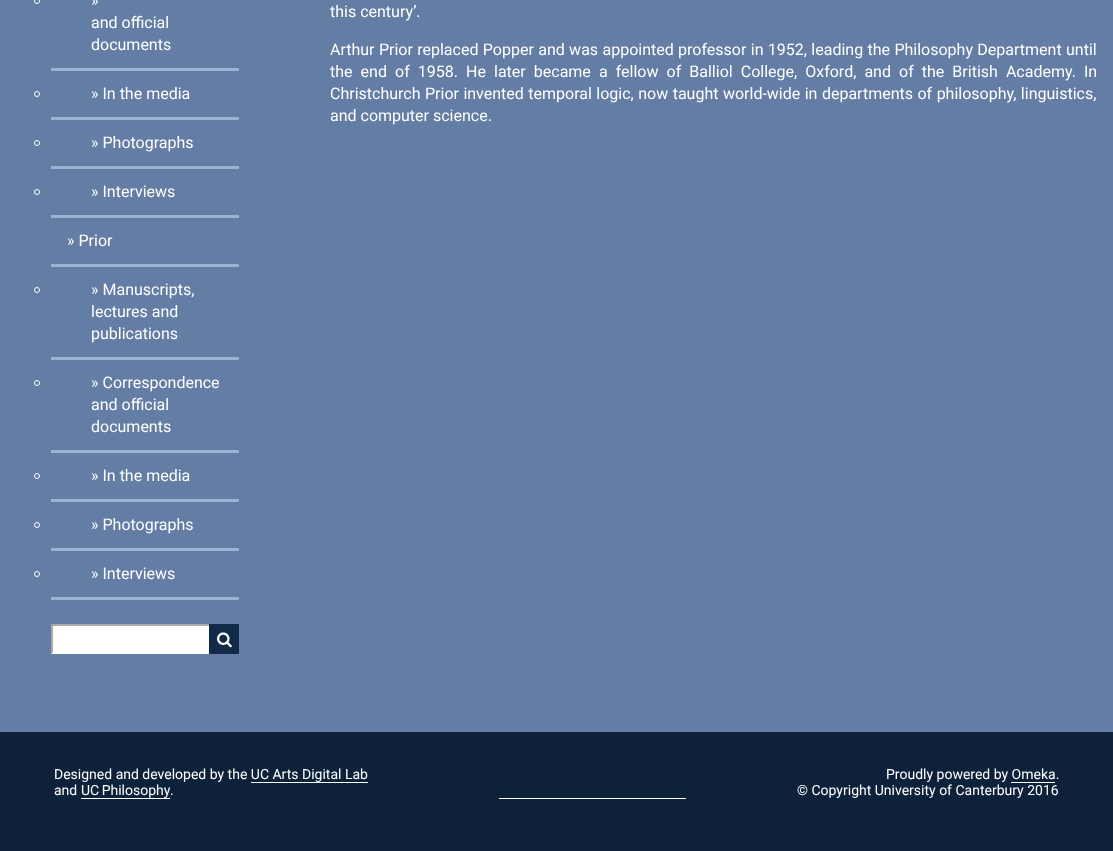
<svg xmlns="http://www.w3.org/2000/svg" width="1113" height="851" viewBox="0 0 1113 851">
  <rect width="100%" height="100%" fill="#637da4"/>
  <circle cx="37" cy="1" r="2.5" fill="none" stroke="#ffffff"/>
  <rect x="51" y="68" width="188" height="3" fill="#9cb2d3"/>
  <text x="91" y="6" font-family="Roboto" font-size="16" fill="#ffffff">»</text>
  <text x="91" y="28" font-family="Roboto" font-size="16" fill="#ffffff">and official</text>
  <text x="91" y="50" font-family="Roboto" font-size="16" fill="#ffffff">documents</text>
  <circle cx="37" cy="94" r="2.5" fill="none" stroke="#ffffff"/>
  <rect x="51" y="117" width="188" height="3" fill="#9cb2d3"/>
  <text x="91" y="99" font-family="Roboto" font-size="16" fill="#ffffff">» In the media</text>
  <circle cx="37" cy="143" r="2.5" fill="none" stroke="#ffffff"/>
  <rect x="51" y="166" width="188" height="3" fill="#9cb2d3"/>
  <text x="91" y="148" font-family="Roboto" font-size="16" fill="#ffffff">» Photographs</text>
  <circle cx="37" cy="192" r="2.5" fill="none" stroke="#ffffff"/>
  <rect x="51" y="215" width="188" height="3" fill="#9cb2d3"/>
  <text x="91" y="197" font-family="Roboto" font-size="16" fill="#ffffff">» Interviews</text>
  <rect x="51" y="264" width="188" height="3" fill="#9cb2d3"/>
  <text x="67" y="246" font-family="Roboto" font-size="16" fill="#ffffff">» Prior</text>
  <circle cx="37" cy="290" r="2.5" fill="none" stroke="#ffffff"/>
  <rect x="51" y="357" width="188" height="3" fill="#9cb2d3"/>
  <text x="91" y="295" font-family="Roboto" font-size="16" fill="#ffffff">» Manuscripts,</text>
  <text x="91" y="317" font-family="Roboto" font-size="16" fill="#ffffff">lectures and</text>
  <text x="91" y="339" font-family="Roboto" font-size="16" fill="#ffffff">publications</text>
  <circle cx="37" cy="383" r="2.5" fill="none" stroke="#ffffff"/>
  <rect x="51" y="450" width="188" height="3" fill="#9cb2d3"/>
  <text x="91" y="388" font-family="Roboto" font-size="16" fill="#ffffff">» Correspondence</text>
  <text x="91" y="410" font-family="Roboto" font-size="16" fill="#ffffff">and official</text>
  <text x="91" y="432" font-family="Roboto" font-size="16" fill="#ffffff">documents</text>
  <circle cx="37" cy="476" r="2.5" fill="none" stroke="#ffffff"/>
  <rect x="51" y="499" width="188" height="3" fill="#9cb2d3"/>
  <text x="91" y="481" font-family="Roboto" font-size="16" fill="#ffffff">» In the media</text>
  <circle cx="37" cy="525" r="2.5" fill="none" stroke="#ffffff"/>
  <rect x="51" y="548" width="188" height="3" fill="#9cb2d3"/>
  <text x="91" y="530" font-family="Roboto" font-size="16" fill="#ffffff">» Photographs</text>
  <circle cx="37" cy="574" r="2.5" fill="none" stroke="#ffffff"/>
  <rect x="51" y="597" width="188" height="3" fill="#9cb2d3"/>
  <text x="91" y="579" font-family="Roboto" font-size="16" fill="#ffffff">» Interviews</text>
  <rect x="53" y="626" width="156" height="26" fill="#ffffff"/>
  <path d="M51 624H239L237 626H53Z" fill="#aaaaaa"/>
  <path d="M239 654H51L53 652H237Z" fill="#ffffff"/>
  <path d="M51 654V624L53 626V652Z" fill="#aaaaaa"/>
  <rect x="209" y="624" width="30" height="30" fill="#102a48"/>
  <image x="217" y="632" width="15" height="16" href="img1.png"/>
  <text x="330" y="17" font-family="Roboto" font-size="16" fill="#ffffff">this century’.</text>
  <text x="330" y="55" word-spacing="0.4" font-family="Roboto" font-size="16" fill="#ffffff">Arthur Prior replaced Popper and was appointed professor in 1952, leading the Philosophy Department until</text>
  <text x="330" y="77" word-spacing="4.1" font-family="Roboto" font-size="16" fill="#ffffff">the end of 1958. He later became a fellow of Balliol College, Oxford, and of the British Academy. In</text>
  <text x="330" y="99" word-spacing="0.5" font-family="Roboto" font-size="16" fill="#ffffff">Christchurch Prior invented temporal logic, now taught world-wide in departments of philosophy, linguistics,</text>
  <text x="330" y="121" font-family="Roboto" font-size="16" fill="#ffffff">and computer science.</text>
  <rect x="0" y="732" width="1113" height="119" fill="#0d223a"/>
  <text x="54" y="779" font-family="Roboto" font-size="14" fill="#ffffff">Designed and developed by the UC Arts Digital Lab</text>
  <rect x="251" y="782" width="117" height="1" fill="#ffffff"/>
  <text x="54" y="795" font-family="Roboto" font-size="14" fill="#ffffff">and</text>
  <text x="81" y="795" word-spacing="-1" font-family="Roboto" font-size="14" fill="#ffffff">UC Philosophy</text>
  <rect x="81" y="798" width="89" height="1" fill="#ffffff"/>
  <text x="170" y="795" font-family="Roboto" font-size="14" fill="#ffffff">.</text>
  <text x="886" y="779" font-family="Roboto" font-size="14" fill="#ffffff">Proudly powered by Omeka.</text>
  <rect x="1011" y="782" width="44" height="1" fill="#ffffff"/>
  <text x="797" y="795" font-family="Roboto" font-size="14" fill="#ffffff">© Copyright University of Canterbury 2016</text>
  <rect x="499" y="798" width="187" height="1" fill="#ffffff"/>
</svg>
